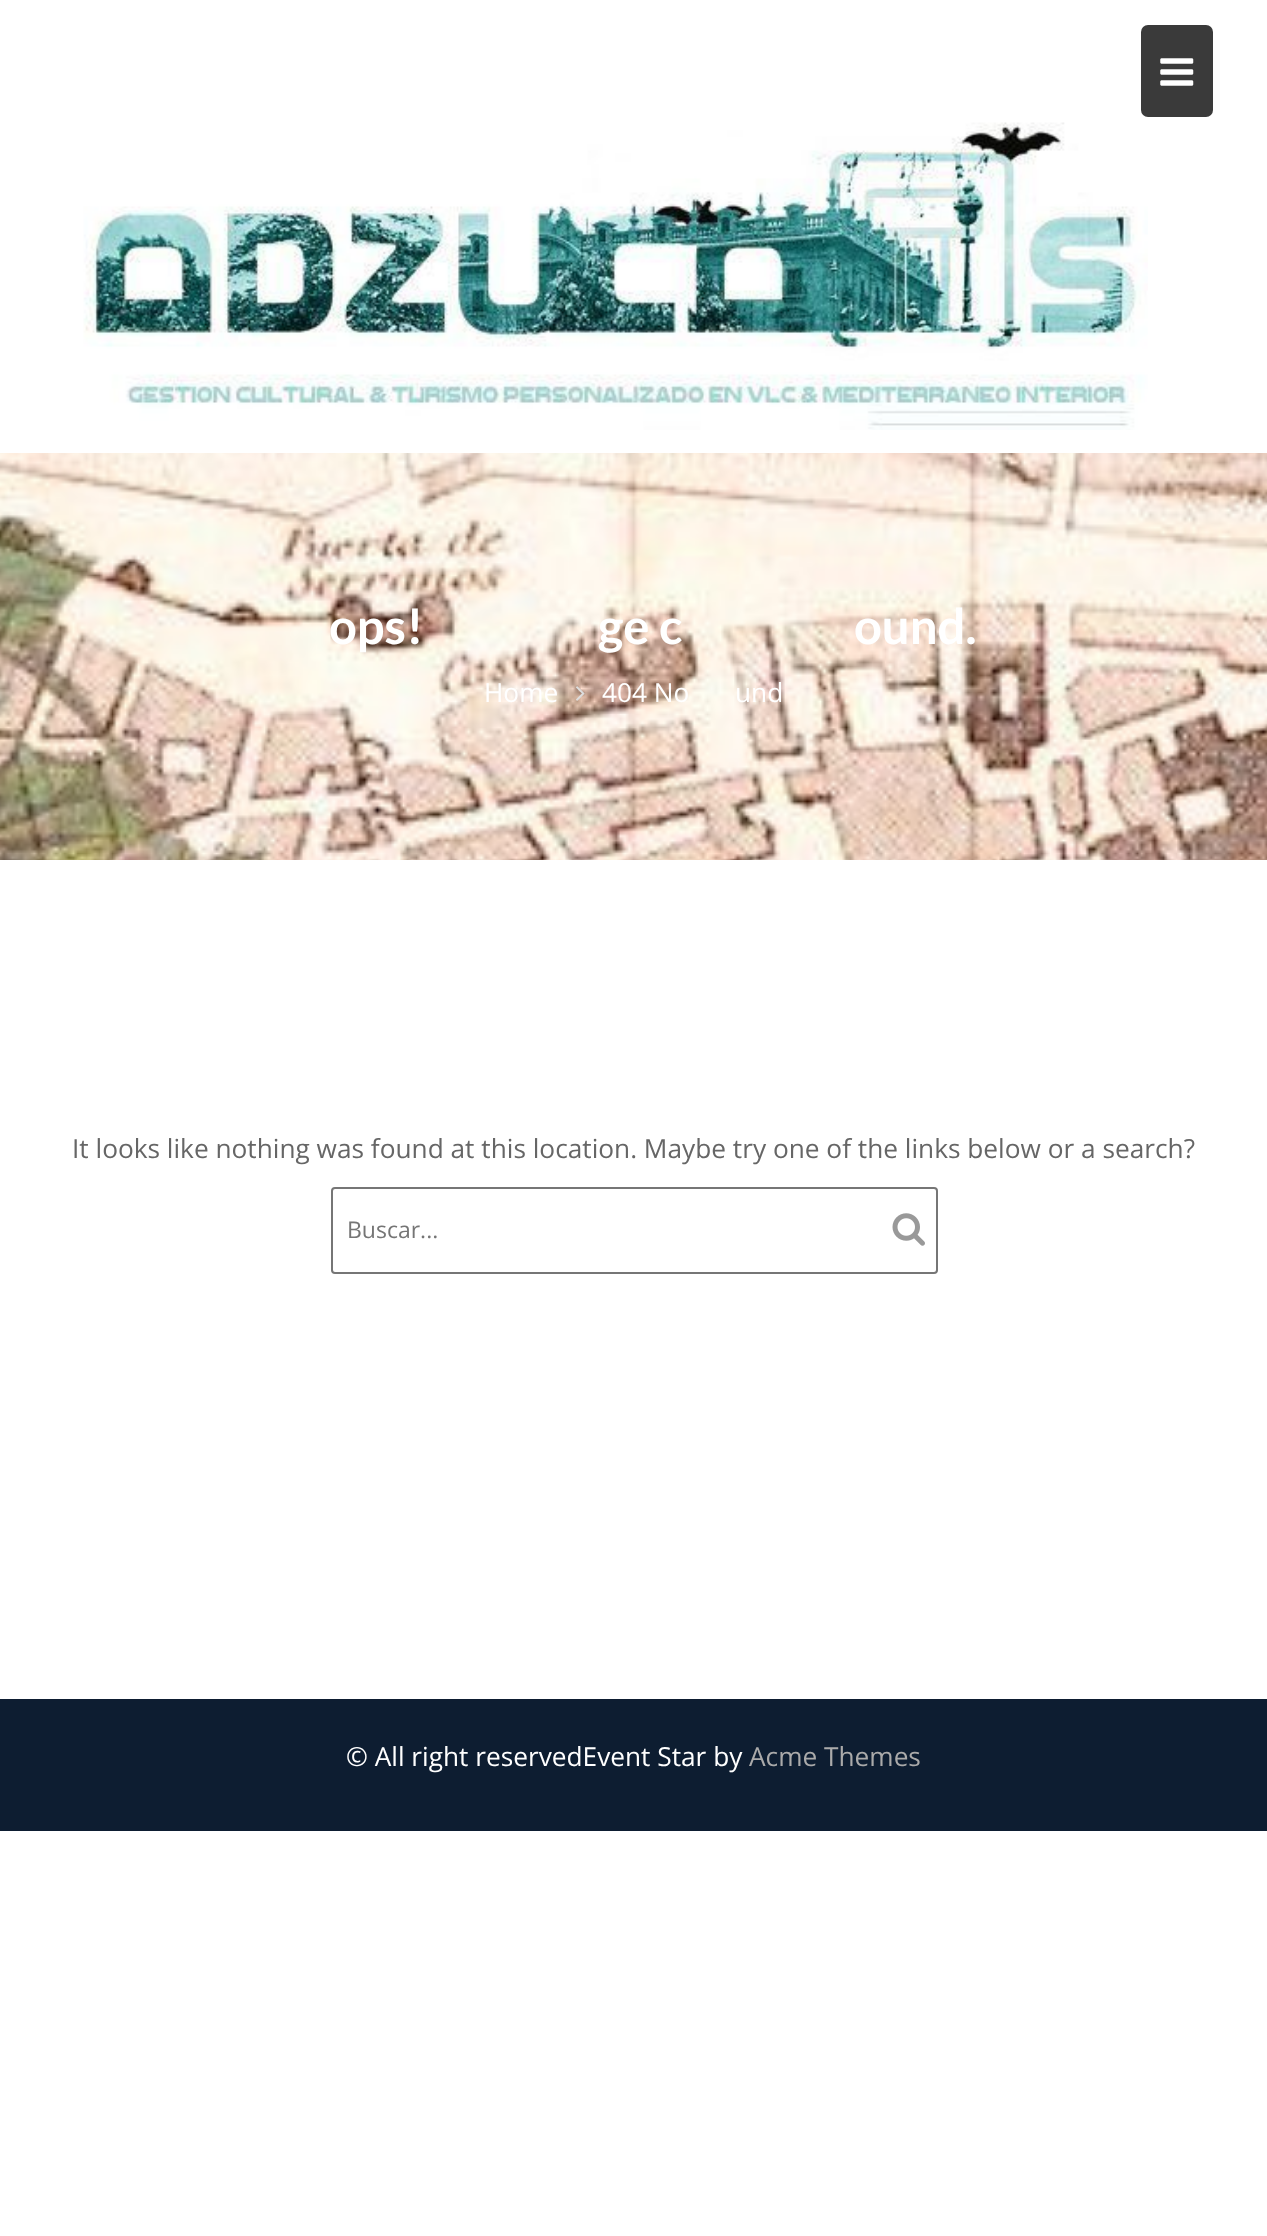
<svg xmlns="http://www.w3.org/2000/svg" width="1267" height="2236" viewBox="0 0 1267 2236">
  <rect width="100%" height="100%" fill="#ffffff"/>
  <rect x="1141" y="25" width="72" height="92" rx="7" fill="#3a3a3a"/>
  <image x="1160" y="58" width="34" height="28" href="img1.png"/>
  <image x="83" y="122" width="1065" height="308" href="img2.png"/>
  <image x="0" y="453" width="1267" height="407" href="img3.png"/>
  <text x="329" y="644" font-family="Lato" font-size="49" font-weight="bold" fill="#ffffff">ops!</text>
  <text x="598" y="644" font-family="Lato" font-size="49" font-weight="bold" fill="#ffffff">ge c</text>
  <text x="854" y="644" font-family="Lato" font-size="49" font-weight="bold" fill="#ffffff">ound.</text>
  <text x="484" y="702" font-family="Open Sans" font-size="26.25" fill="#ffffff">Home</text>
  <image x="576" y="686" width="9" height="15" href="img4.png"/>
  <text x="602" y="702" font-family="Open Sans" font-size="26.25" fill="#ffffff">404 No</text>
  <text x="735" y="702" font-family="Open Sans" font-size="26.25" fill="#ffffff">und</text>
  <text x="72" y="1158" font-family="Open Sans" font-size="26.25" fill="#666666">It looks like nothing was found at this location. Maybe try one of the links below or a search?</text>
  <rect x="332" y="1188" width="605" height="85" rx="3" fill="none" stroke="#767676" stroke-width="2"/>
  <text x="347" y="1238" font-family="Open Sans" font-size="23" fill="#757575">Buscar...</text>
  <image x="892" y="1213" width="33" height="33" href="img5.png"/>
  <rect x="0" y="1699" width="1267" height="132" fill="#0d1d31"/>
  <text x="346" y="1766" font-family="Open Sans" font-size="26.25" fill="#ffffff">© All right reservedEvent Star by</text>
  <text x="749" y="1766" font-family="Open Sans" font-size="26.25" fill="#aaaaaa">Acme Themes</text>
</svg>
